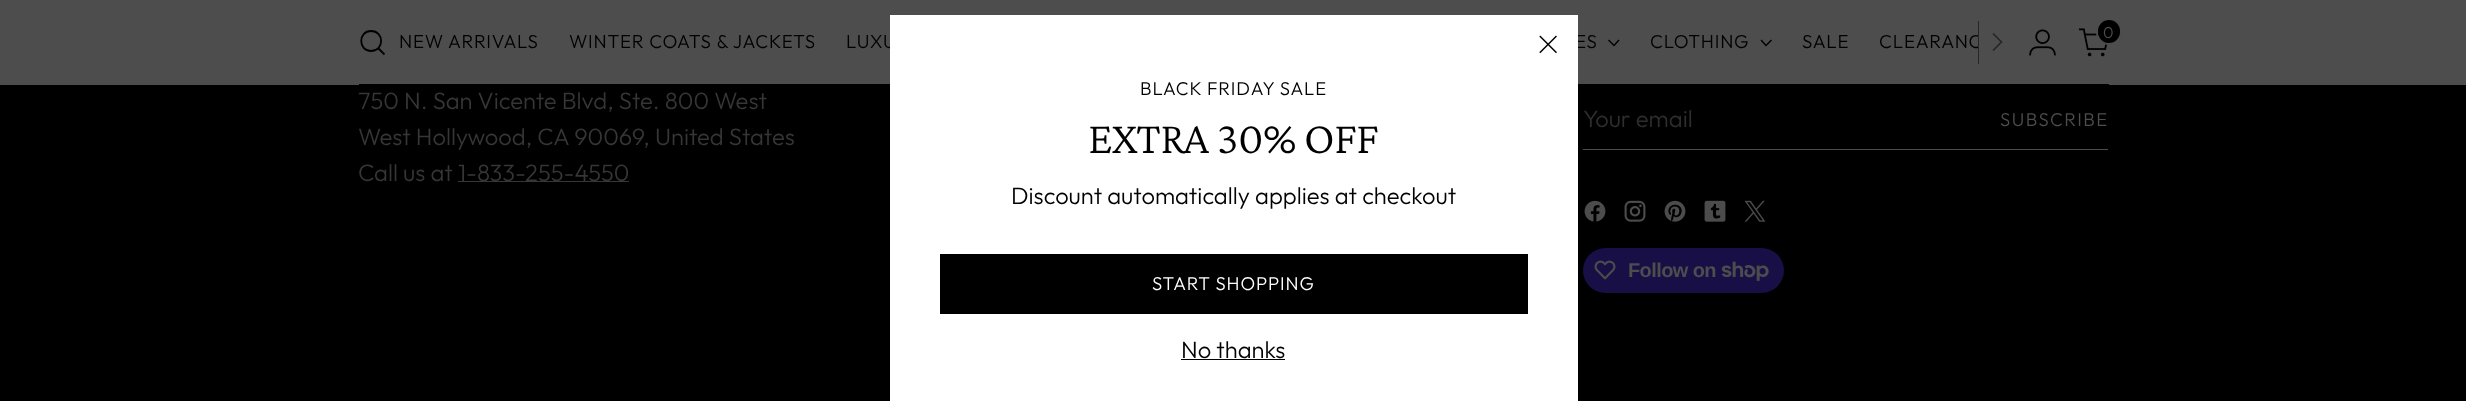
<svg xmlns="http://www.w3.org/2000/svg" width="2466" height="401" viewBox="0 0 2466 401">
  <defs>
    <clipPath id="clip1"><rect x="399" y="0" width="1579" height="85"/></clipPath>
    <clipPath id="clip2"><rect x="940" y="254" width="588" height="60"/></clipPath>
  </defs>
  <rect width="100%" height="100%" fill="#000000"/>
  <rect x="0" y="0" width="2466" height="85" fill="#4d4d4d"/>
  <rect x="359" y="84" width="1750" height="1" fill="#000000"/>
  <path d="M371 51C384.5 51 384.5 31 371 31C358 31 358 51 371 51Z" fill="none" stroke="#000000" stroke-width="1.8" stroke-linecap="round"/>
  <path d="M378.5 48.5L384.5 54.5" fill="none" stroke="#000000" stroke-width="1.8"/>
  <text x="399" y="48" font-family="Outfit" font-size="18.75" font-weight="300" letter-spacing="0.75" fill="#000000">NEW ARRIVALS</text>
  <text x="569" y="48" font-family="Outfit" font-size="18.75" font-weight="300" letter-spacing="0.75" fill="#000000">WINTER COATS &amp; JACKETS</text>
  <text x="846" y="48" font-family="Outfit" font-size="18.75" font-weight="300" letter-spacing="0.75" fill="#000000">LUXU</text>
  <text x="1575" y="48" font-family="Outfit" font-size="18.75" font-weight="300" letter-spacing="0.75" fill="#000000">ES</text>
  <path d="M1608.5 40L1614 45.5L1619 40" fill="none" stroke="#000000" stroke-width="1.4"/>
  <text x="1650" y="48" font-family="Outfit" font-size="18.75" font-weight="300" letter-spacing="0.75" fill="#000000">CLOTHING</text>
  <path d="M1761 40L1766 45.5L1771.5 40" fill="none" stroke="#000000" stroke-width="1.4"/>
  <text x="1802" y="48" font-family="Outfit" font-size="18.75" font-weight="300" letter-spacing="0.75" fill="#000000">SALE</text>
  <g clip-path="url(#clip1)">
    <text x="1879" y="48" font-family="Outfit" font-size="18.75" font-weight="300" letter-spacing="0.75" fill="#000000">CLEARANC</text>
  </g>
  <rect x="1978" y="21" width="1" height="43" fill="#262626"/>
  <path d="M1993 50.5L2001.5 42L1993 33.5" fill="none" stroke="#262626" stroke-width="1.7"/>
  <image x="2029" y="29" width="27" height="27" href="img1.png"/>
  <image x="2078" y="28" width="30" height="29" href="img2.png"/>
  <rect x="2097" y="20" width="25" height="24" rx="12" fill="none" stroke="#4d4d4d" stroke-width="2"/>
  <rect x="2098" y="20" width="22" height="23" rx="11" fill="#000000"/>
  <text x="2103" y="38" font-family="Outfit" font-size="16" font-weight="300" fill="#4d4d4d">0</text>
  <rect x="890" y="15" width="688" height="386" fill="#ffffff"/>
  <image x="1539" y="35" width="18" height="19" href="img3.png"/>
  <text x="1140" y="95" font-family="Outfit" font-size="18.5" font-weight="300" letter-spacing="0.9" fill="#000000">BLACK FRIDAY SALE</text>
  <text x="1088" y="153" font-family="Crimson Pro" font-size="46" font-weight="300" letter-spacing="-0.5" fill="#000000">EXTRA 30% OFF</text>
  <text x="1011" y="204" font-family="Outfit" font-size="23.75" font-weight="300" fill="#000000">Discount automatically applies at checkout</text>
  <g clip-path="url(#clip2)">
    <path d="M805 254H1627L1662 314H839Z" fill="#000000"/>
  </g>
  <text x="1152" y="290" font-family="Outfit" font-size="18.5" font-weight="300" letter-spacing="0.9" fill="#ffffff">START SHOPPING</text>
  <text x="1181" y="358" font-family="Outfit" font-size="23.75" font-weight="300" fill="#000000">No thanks</text>
  <rect x="1181" y="359" width="104" height="1" fill="#000000"/>
  <text x="358" y="109" font-family="Outfit" font-size="23.75" font-weight="300" fill="#363636">750 N. San Vicente Blvd, Ste. 800 West</text>
  <text x="358" y="145" font-family="Outfit" font-size="23.75" font-weight="300" fill="#363636">West Hollywood, CA 90069, United States</text>
  <text x="358" y="181" font-family="Outfit" font-size="23.75" font-weight="300" fill="#363636">Call us at</text>
  <rect x="458" y="181" width="171" height="1" fill="#363636"/>
  <text x="458" y="181" font-family="Outfit" font-size="23.75" font-weight="300" fill="#363636">1-833-255-4550</text>
  <rect x="1583" y="149" width="525" height="1" fill="#4d4d4d"/>
  <text x="1583" y="127" font-family="Outfit" font-size="23.75" font-weight="300" fill="#2e2e2e">Your email</text>
  <text x="2000" y="126" font-family="Outfit" font-size="18.5" font-weight="300" letter-spacing="1.4" fill="#4d4d4d">SUBSCRIBE</text>
  <image x="1584" y="200" width="22" height="22" href="img4.png"/>
  <image x="1624" y="200" width="22" height="22" href="img5.png"/>
  <image x="1664" y="200" width="22" height="22" href="img6.png"/>
  <image x="1704" y="200" width="22" height="22" href="img7.png"/>
  <image x="1744" y="200" width="22" height="22" href="img8.png"/>
  <rect x="1583" y="248" width="201" height="45" rx="22.5" fill="#190f47"/>
  <image x="1594" y="260" width="22" height="20" href="img9.png"/>
  <text x="1628" y="277" font-family="Liberation Sans" font-size="20" font-weight="bold" letter-spacing="-0.6" fill="#4d4d4d">Follow on</text>
  <image x="1721" y="261" width="48" height="20" href="img10.png"/>
</svg>
